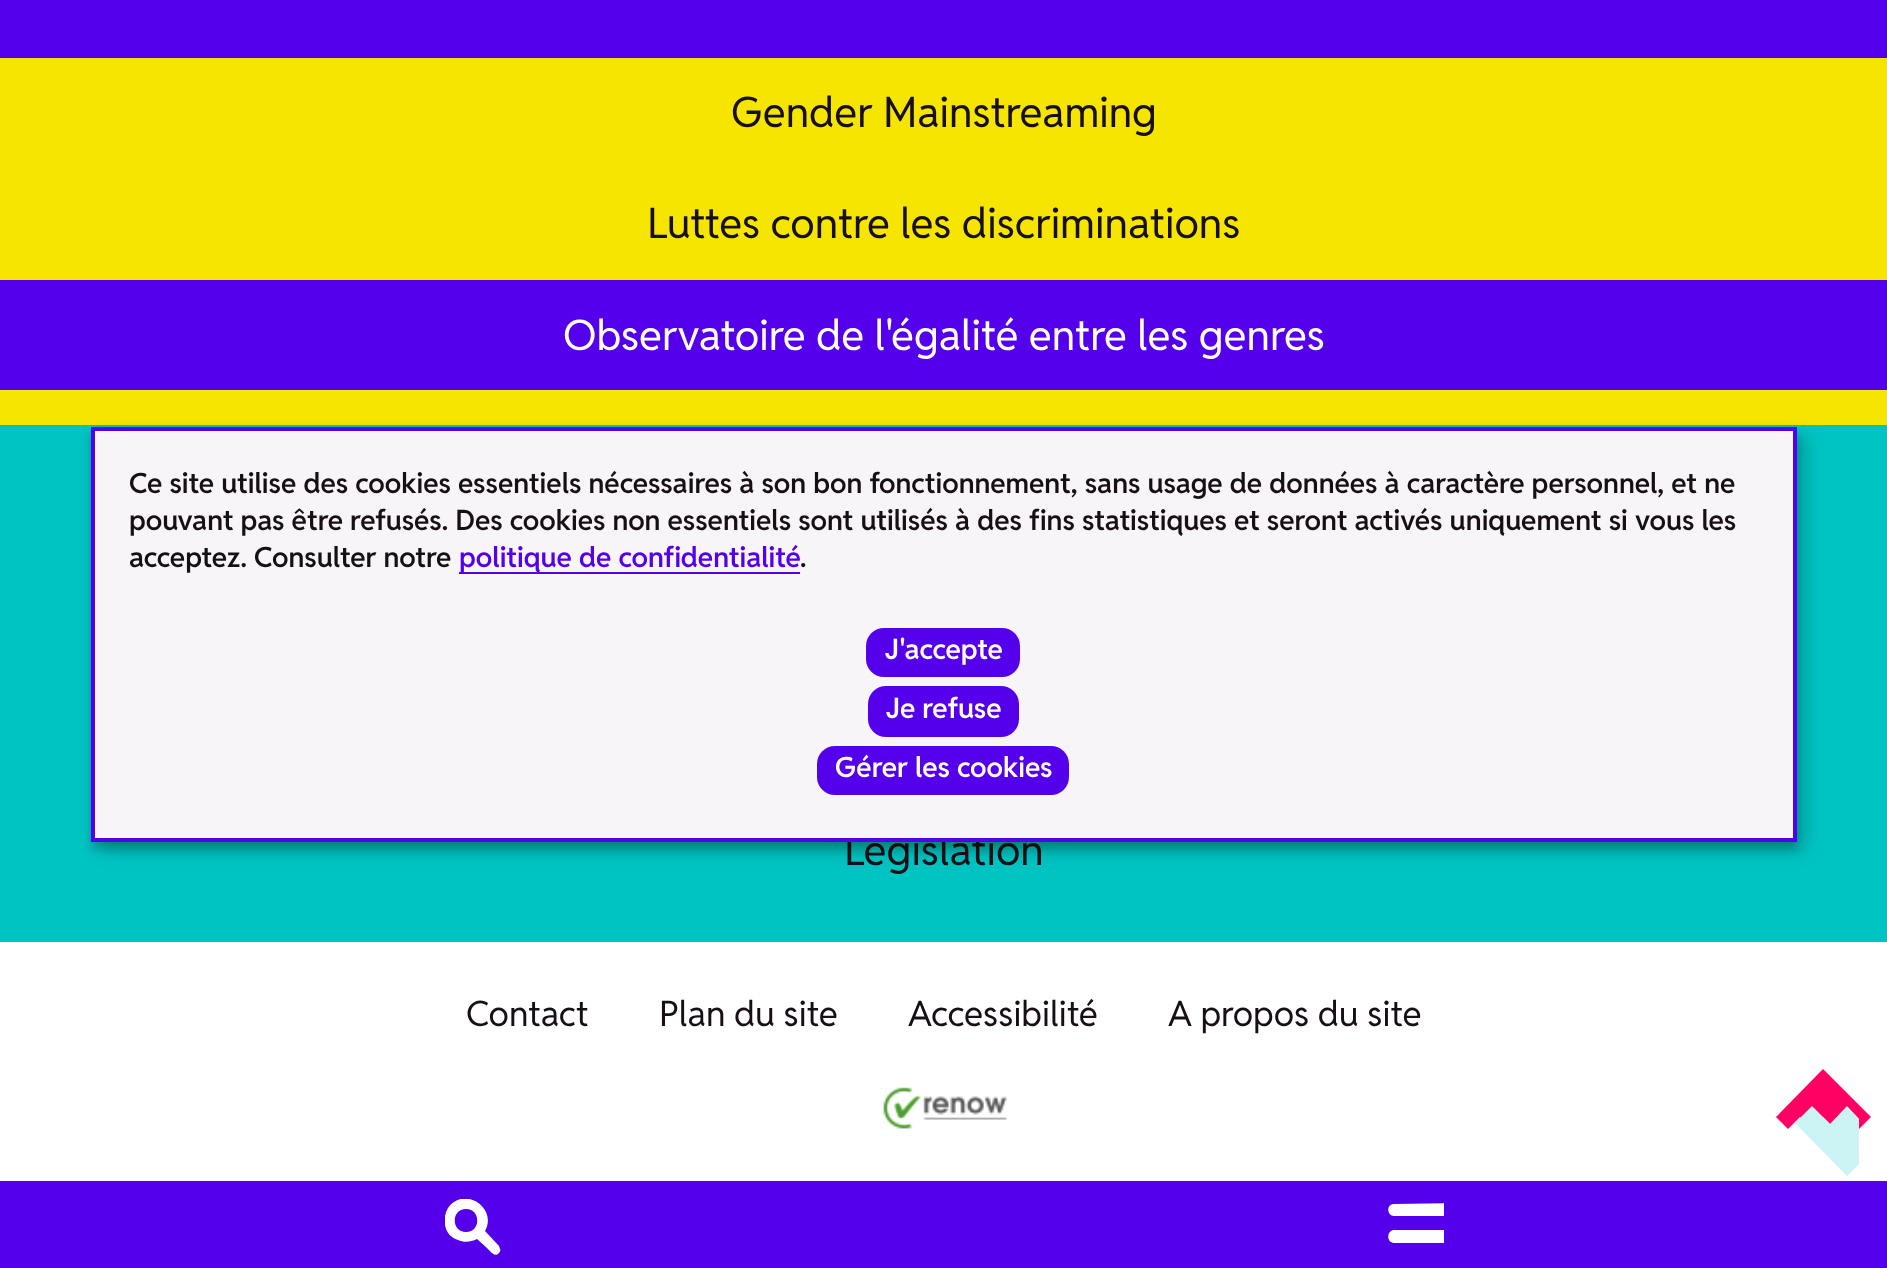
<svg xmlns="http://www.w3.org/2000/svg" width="1887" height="1268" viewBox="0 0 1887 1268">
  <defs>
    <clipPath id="clip1"><rect x="1789" y="1106" width="70" height="70"/></clipPath>
    <clipPath id="clip2"><rect x="445" y="1199" width="56" height="56"/></clipPath>
    <clipPath id="clip3"><rect x="1388" y="1199" width="56" height="56"/></clipPath>
    <filter id="blur1" x="-50%" y="-200%" width="200%" height="500%"><feGaussianBlur stdDeviation="9"/></filter>
    <filter id="blur2" x="-50%" y="-200%" width="200%" height="500%"><feGaussianBlur stdDeviation="5"/></filter>
  </defs>
  <rect width="100%" height="100%" fill="#ffffff"/>
  <rect x="0" y="58" width="1887" height="367" fill="#f5e500"/>
  <rect x="0" y="0" width="1887" height="58" fill="#5500eb"/>
  <text x="731" y="127" font-family="Reddit Sans" font-size="42" fill="#180f16">Gender Mainstreaming</text>
  <text x="647" y="238" font-family="Reddit Sans" font-size="42" fill="#180f16">Luttes contre les discriminations</text>
  <rect x="0" y="280" width="1887" height="110" fill="#5500eb"/>
  <text x="563" y="350" font-family="Reddit Sans" font-size="42" fill="#ffffff">Observatoire de l'égalité entre les genres</text>
  <rect x="0" y="425" width="1887" height="517" fill="#00c4c2"/>
  <text x="844" y="865" font-family="Reddit Sans" font-size="42" fill="#180f16">Législation</text>
  <text x="466" y="1026" font-family="Reddit Sans" font-size="35" fill="#180f16">Contact</text>
  <text x="659" y="1026" font-family="Reddit Sans" font-size="35" fill="#180f16">Plan du site</text>
  <text x="908" y="1026" font-family="Reddit Sans" font-size="35" fill="#180f16">Accessibilité</text>
  <text x="1168" y="1026" font-family="Reddit Sans" font-size="35" fill="#180f16">A propos du site</text>
  <image x="883" y="1087" width="124" height="42" href="img1.png"/>
  <path d="M1812 1129L1823 1117L1835 1129L1847 1117L1859 1129L1871 1117L1823 1069L1776 1117L1788 1129L1800 1117Z" fill="#ff0063"/>
  <g clip-path="url(#clip1)">
    <path d="M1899 1124L1881 1106L1864 1124L1847 1106L1830 1124L1812 1106L1795 1123L1847 1176Z" fill="#ccf3f3"/>
  </g>
  <rect x="0" y="1181" width="1887" height="87" fill="#5500eb"/>
  <g clip-path="url(#clip2)">
    <path d="M499 1246L485 1231C498 1208 464 1185 448 1208C445 1213 444 1219 445 1225C446 1232 451 1238 458 1240C464 1243 471 1242 477 1239L487 1248C490 1251 495 1258 499 1253C500 1252 501 1250 500 1249ZM466 1232C451 1232 451 1209 466 1209C481 1209 481 1232 466 1232Z" fill="#ffffff"/>
  </g>
  <g clip-path="url(#clip3)">
    <path d="M1394 1216H1458C1465 1214 1463 1203 1456 1203L1393 1204C1386 1205 1387 1216 1394 1216ZM1456 1230H1393C1386 1232 1387 1243 1394 1243H1458C1465 1241 1463 1230 1456 1230ZM1456 1256H1392C1386 1258 1387 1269 1394 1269H1458C1465 1267 1463 1256 1456 1256Z" fill="#ffffff"/>
  </g>
  <rect x="100" y="436" width="1706" height="415" fill="#000000" fill-opacity="0.19" filter="url(#blur1)"/>
  <rect x="91" y="434" width="1706" height="415" fill="#000000" fill-opacity="0.2" filter="url(#blur2)"/>
  <rect x="93" y="429" width="1702" height="411" fill="#f8f5f8" stroke="#5500eb" stroke-width="4"/>
  <text x="129" y="493" font-family="Reddit Sans" font-size="28" font-weight="600" fill="#180f16">Ce site utilise des cookies essentiels nécessaires à son bon fonctionnement, sans usage de données à caractère personnel, et ne</text>
  <text x="129" y="530" font-family="Reddit Sans" font-size="28" font-weight="600" fill="#180f16">pouvant pas être refusés. Des cookies non essentiels sont utilisés à des fins statistiques et seront activés uniquement si vous les</text>
  <text x="129" y="567" font-family="Reddit Sans" font-size="28" font-weight="600" fill="#180f16">acceptez. Consulter notre</text>
  <rect x="459" y="572" width="341" height="2" fill="#5500eb"/>
  <text x="459" y="567" font-family="Reddit Sans" font-size="28" font-weight="600" fill="#5500eb">politique de confidentialité</text>
  <text x="800" y="567" font-family="Reddit Sans" font-size="28" font-weight="600" fill="#180f16">.</text>
  <rect x="866" y="628" width="154" height="49" rx="18" fill="#5500eb"/>
  <text x="885" y="659" font-family="Reddit Sans" font-size="28" font-weight="600" fill="#ffffff">J'accepte</text>
  <rect x="868" y="686" width="151" height="51" rx="18" fill="#5500eb"/>
  <text x="886" y="718" font-family="Reddit Sans" font-size="28" font-weight="600" fill="#ffffff">Je refuse</text>
  <rect x="817" y="746" width="252" height="49" rx="18" fill="#5500eb"/>
  <text x="835" y="777" font-family="Reddit Sans" font-size="28" font-weight="600" fill="#ffffff">Gérer les cookies</text>
</svg>
